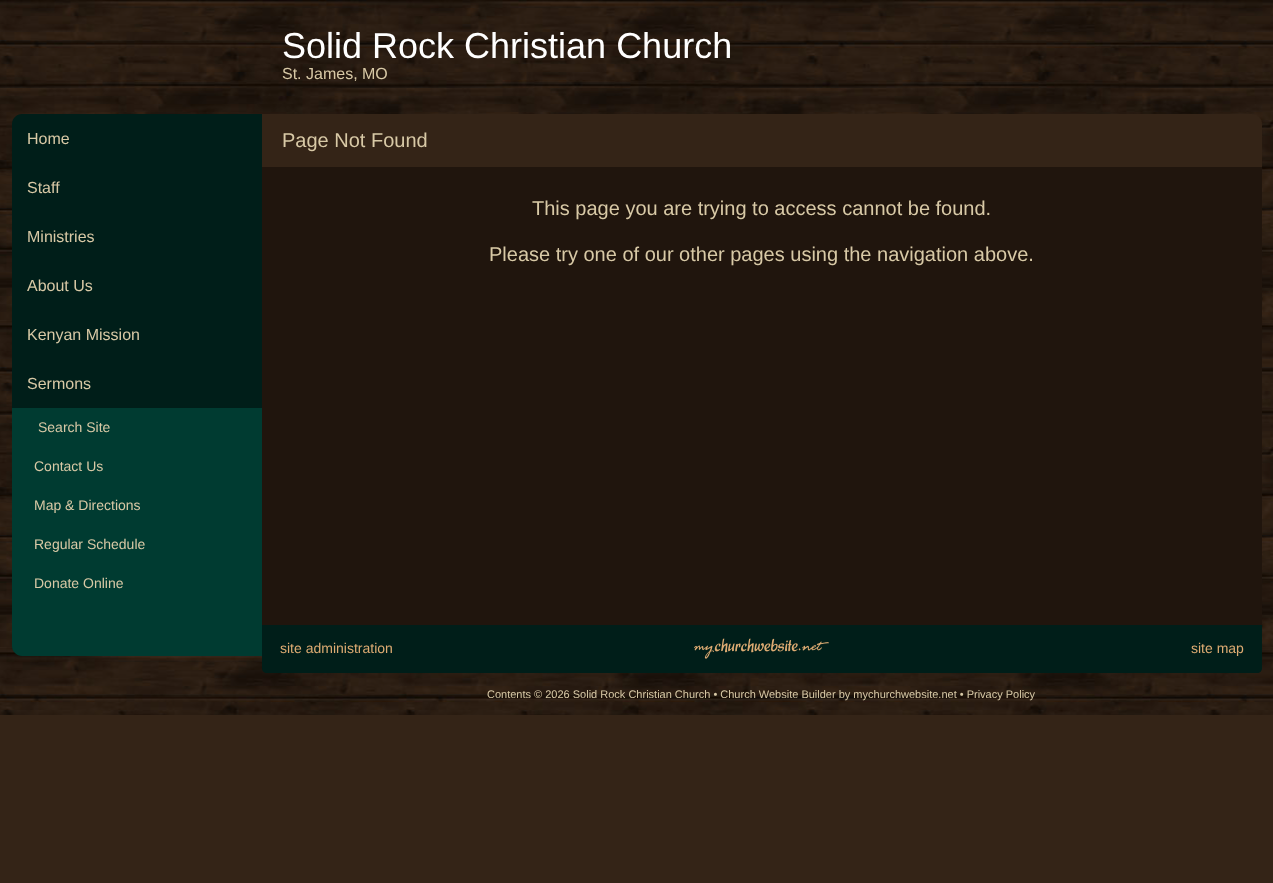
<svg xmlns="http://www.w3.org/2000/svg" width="1273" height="883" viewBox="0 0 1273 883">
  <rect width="100%" height="100%" fill="#342417"/>
  <image x="0" y="0" width="1273" height="715" href="img1.png"/>
  <text x="282" y="58" font-family="Liberation Sans" font-size="36" fill="#ffffff">Solid Rock Christian Church</text>
  <text x="282" y="79" font-family="Liberation Sans" font-size="16" fill="#d8c9a6">St. James, MO</text>
  <path d="M22 114H262V163H12V124C12 118.5 16.5 114 22 114Z" fill="#001e19"/>
  <text x="27" y="144" font-family="Liberation Sans" font-size="16" fill="#d8c9a6">Home</text>
  <rect x="12" y="163" width="250" height="245" fill="#001e19"/>
  <text x="27" y="193" font-family="Liberation Sans" font-size="16" fill="#d8c9a6">Staff</text>
  <text x="27" y="242" font-family="Liberation Sans" font-size="16" fill="#d8c9a6">Ministries</text>
  <text x="27" y="291" font-family="Liberation Sans" font-size="16" fill="#d8c9a6">About Us</text>
  <text x="27" y="340" font-family="Liberation Sans" font-size="16" fill="#d8c9a6">Kenyan Mission</text>
  <text x="27" y="389" font-family="Liberation Sans" font-size="16" fill="#d8c9a6">Sermons</text>
  <rect x="12" y="408" width="250" height="195" fill="#003b31"/>
  <text x="38" y="432" font-family="Liberation Sans" font-size="14" fill="#d8c9a6">Search Site</text>
  <text x="34" y="471" font-family="Liberation Sans" font-size="14" fill="#d8c9a6">Contact Us</text>
  <text x="34" y="510" font-family="Liberation Sans" font-size="14" fill="#d8c9a6">Map &amp; Directions</text>
  <text x="34" y="549" font-family="Liberation Sans" font-size="14" fill="#d8c9a6">Regular Schedule</text>
  <text x="34" y="588" font-family="Liberation Sans" font-size="14" fill="#d8c9a6">Donate Online</text>
  <path d="M12 603H262V656H22C16.5 656 12 651.5 12 646Z" fill="#003b31"/>
  <path d="M262 114H1252C1257.5 114 1262 118.5 1262 124V167H262Z" fill="#342417"/>
  <text x="282" y="147" font-family="Liberation Sans" font-size="20" fill="#d8c9a6">Page Not Found</text>
  <rect x="262" y="167" width="1000" height="458" fill="#20150d"/>
  <text x="532" y="215" font-family="Liberation Sans" font-size="20" fill="#d8c9a6">This page you are trying to access cannot be found.</text>
  <text x="489" y="261" font-family="Liberation Sans" font-size="20" fill="#d8c9a6">Please try one of our other pages using the navigation above.</text>
  <path d="M262 625H1262V668C1262 671 1260 673 1257 673H267C264 673 262 671 262 668Z" fill="#001e19"/>
  <text x="280" y="653" font-family="Liberation Sans" font-size="14" fill="#deac73">site administration</text>
  <image x="694" y="638" width="135" height="21" href="img2.png"/>
  <text x="1191" y="653" font-family="Liberation Sans" font-size="14" fill="#deac73">site map</text>
  <text x="487" y="698" font-family="Liberation Sans" font-size="11" fill="#d8c9a6">Contents © 2026 Solid Rock Christian Church • Church Website Builder by mychurchwebsite.net • Privacy Policy</text>
</svg>
